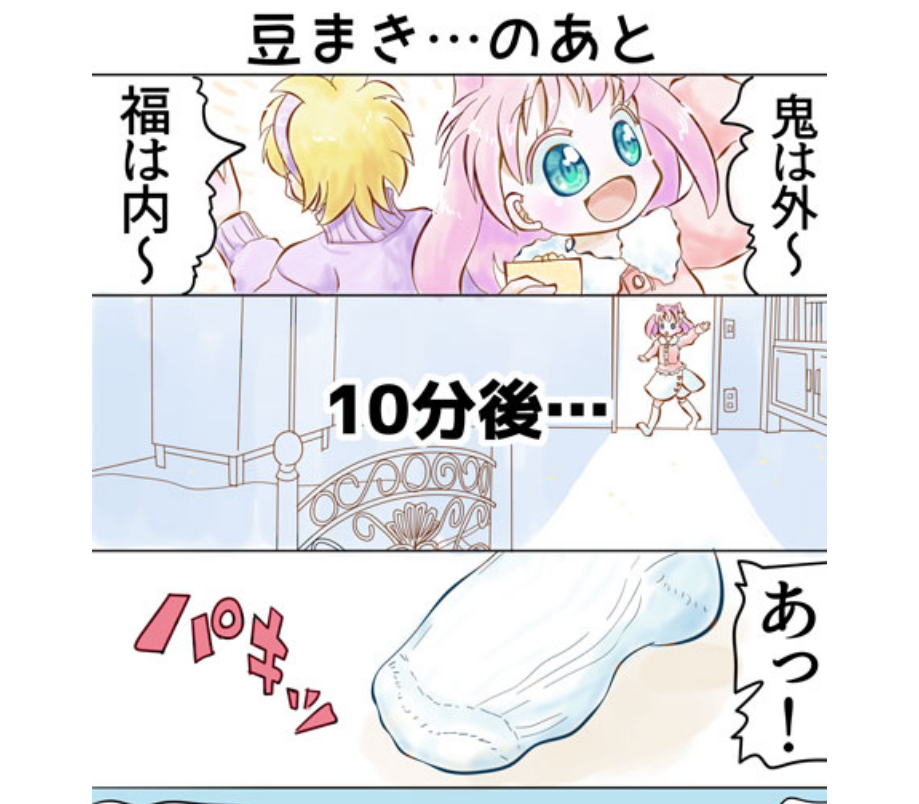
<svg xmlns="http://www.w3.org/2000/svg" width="919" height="804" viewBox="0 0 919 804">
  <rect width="100%" height="100%" fill="#ffffff"/>
  <image x="92" y="10" width="735" height="794" href="img1.png"/>
</svg>
